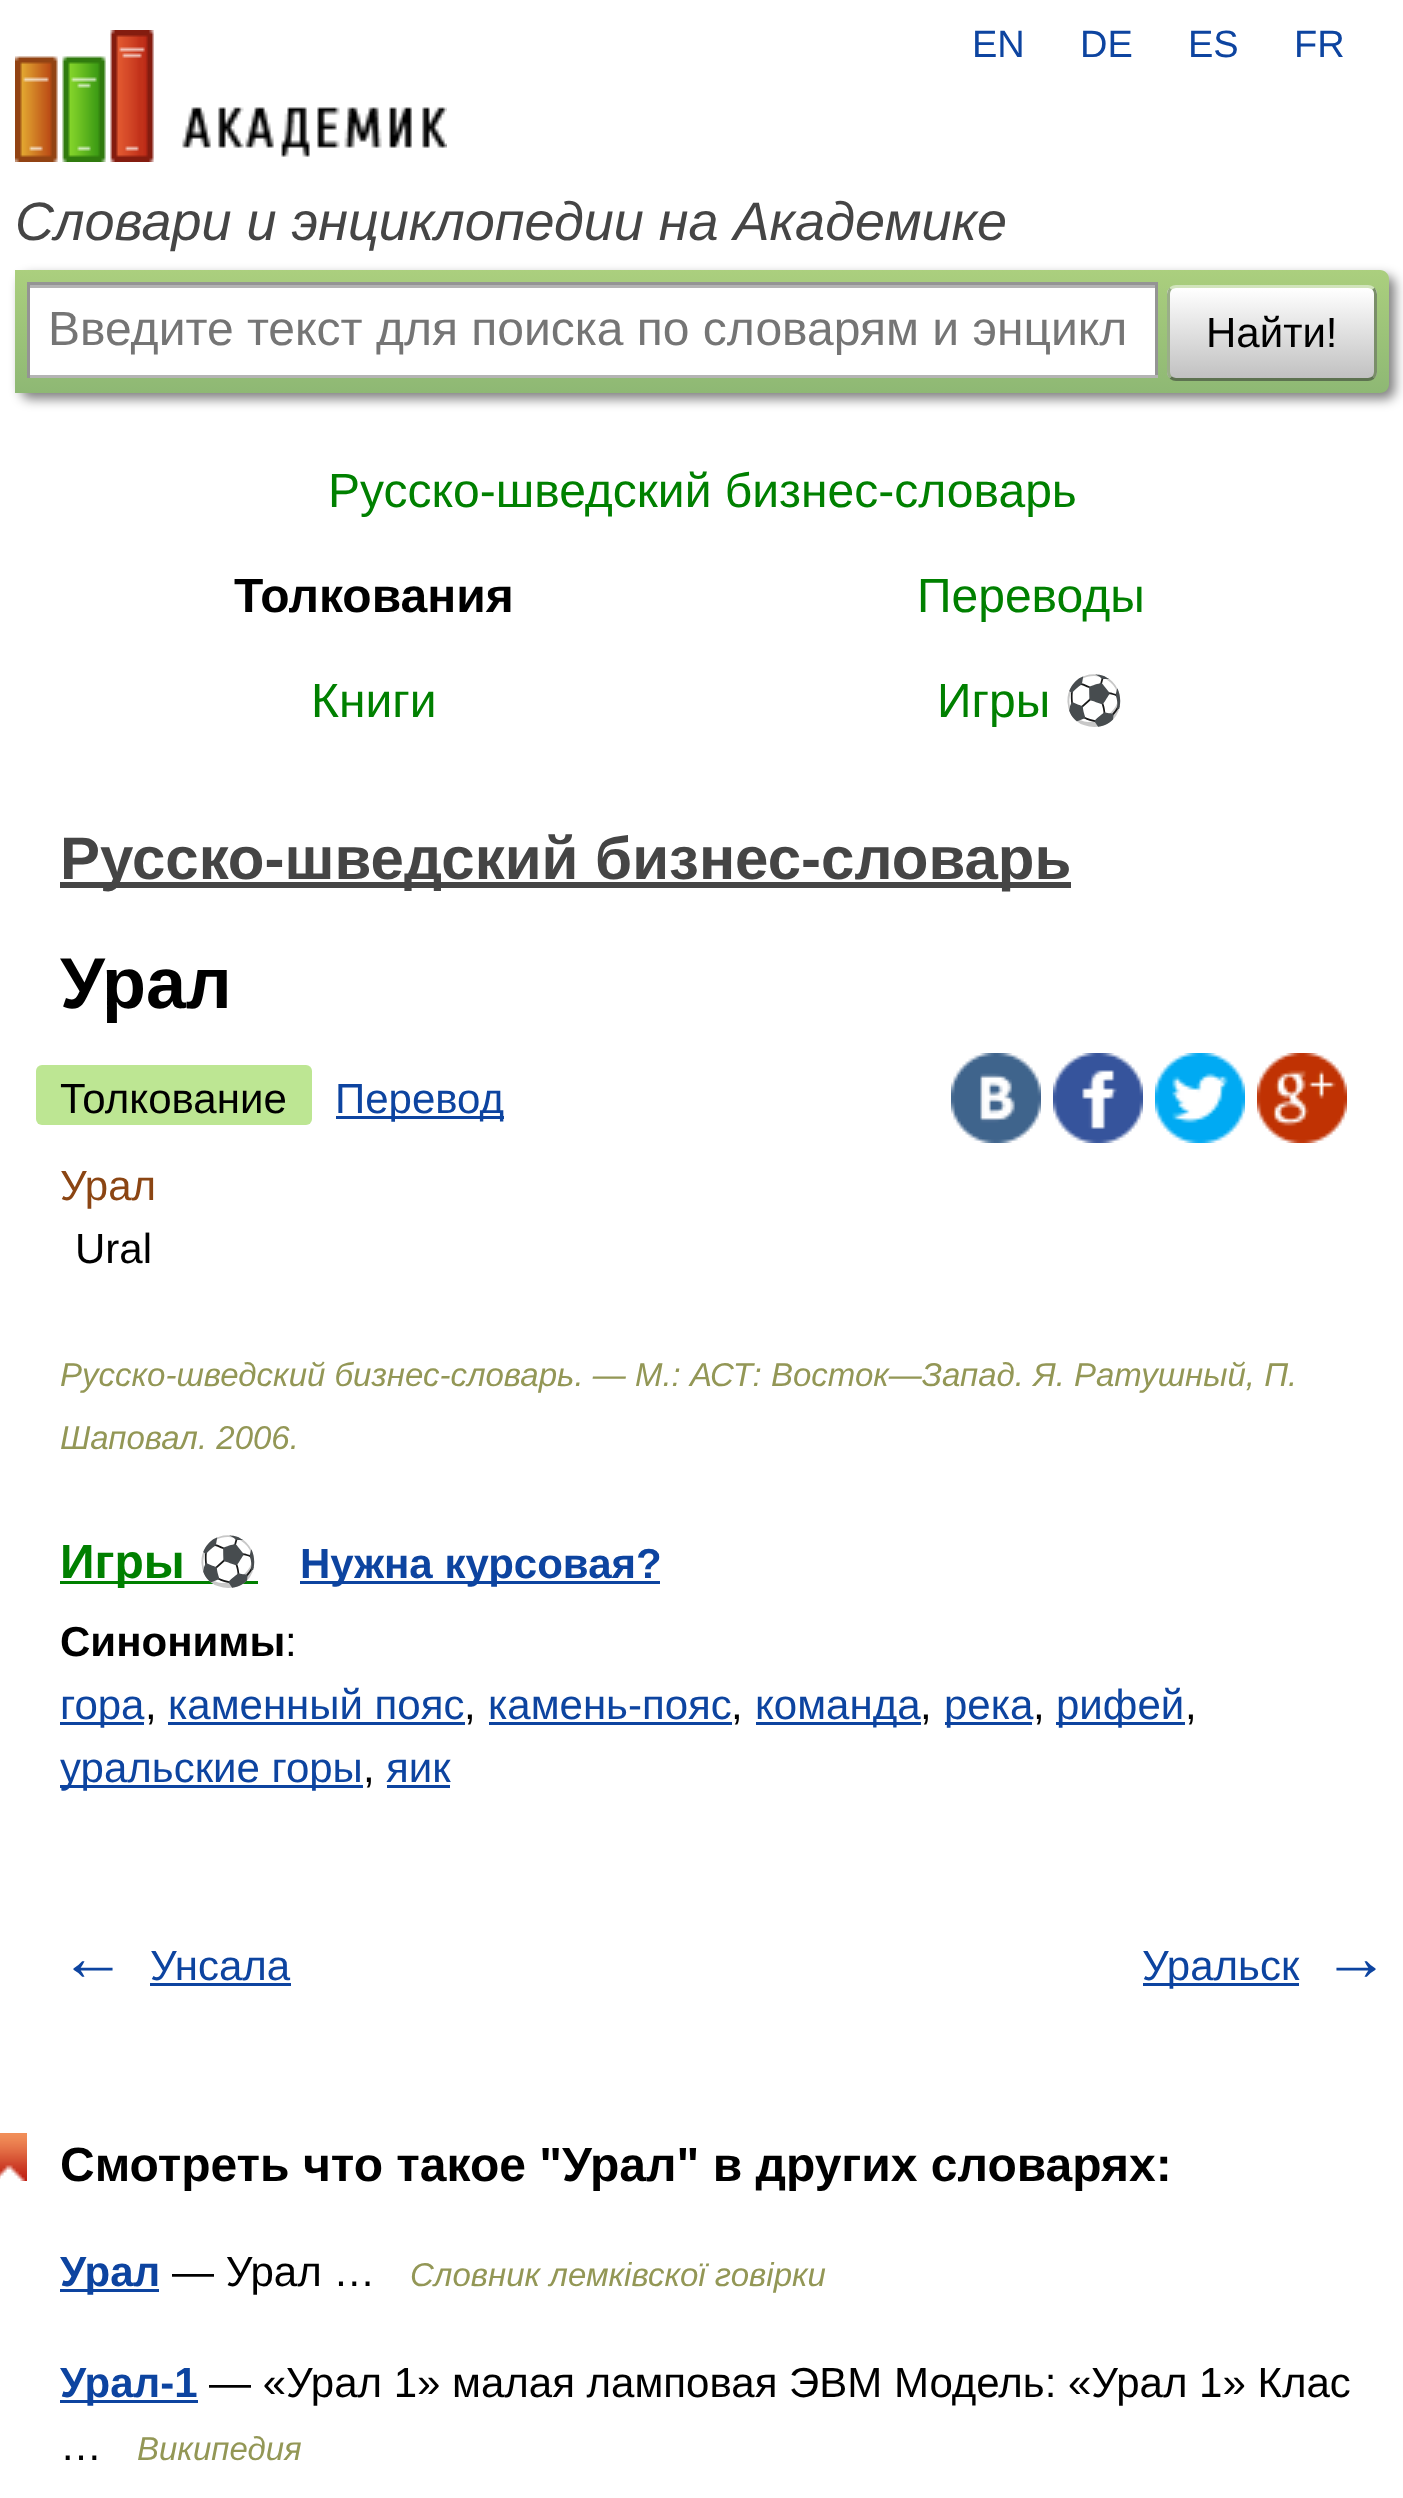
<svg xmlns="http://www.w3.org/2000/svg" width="1403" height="2498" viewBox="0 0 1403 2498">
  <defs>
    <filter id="blur1" x="-50%" y="-200%" width="200%" height="500%"><feGaussianBlur stdDeviation="6"/></filter>
    <linearGradient id="g1" gradientUnits="userSpaceOnUse" x1="702" y1="270" x2="702" y2="393"><stop offset="0" stop-color="#abcf7e"/><stop offset="1" stop-color="#8eb874"/></linearGradient>
    <clipPath id="clip1"><rect x="1167" y="285" width="210" height="96" rx="9"/></clipPath>
    <linearGradient id="g2" gradientUnits="userSpaceOnUse" x1="1272" y1="288" x2="1272" y2="378"><stop offset="0" stop-color="#ffffff"/><stop offset="1" stop-color="#c1c1c1"/></linearGradient>
  </defs>
  <rect width="100%" height="100%" fill="#ffffff"/>
  <image x="15" y="30" width="432" height="132" href="img1.png"/>
  <text x="972" y="57" font-family="Liberation Sans" font-size="38" fill="#0d44a0">EN</text>
  <text x="1080" y="57" font-family="Liberation Sans" font-size="38" fill="#0d44a0">DE</text>
  <text x="1188" y="57" font-family="Liberation Sans" font-size="38" fill="#0d44a0">ES</text>
  <text x="1294" y="57" font-family="Liberation Sans" font-size="38" fill="#0d44a0">FR</text>
  <text x="15" y="240" font-family="Liberation Sans" font-size="54" font-style="italic" fill="#454545">Словари и энциклопедии на Академике</text>
  <rect x="21" y="276" width="1374" height="123" rx="9" fill="#000000" fill-opacity="0.5" filter="url(#blur1)"/>
  <path d="M15 270H1380C1385 270 1389 274 1389 279V384C1389 389 1385 393 1380 393H15Z" fill="url(#g1)"/>
  <rect x="30" y="288" width="1125" height="87" fill="#ffffff"/>
  <rect x="30" y="285" width="1125" height="3" fill="#b3b3b3"/>
  <rect x="27" y="282" width="1131" height="3" fill="#949494"/>
  <rect x="1155" y="282" width="3" height="96" fill="#949494"/>
  <rect x="27" y="375" width="1131" height="3" fill="#b4b4b4"/>
  <rect x="27" y="282" width="3" height="96" fill="#949494"/>
  <text x="48" y="345" font-family="Liberation Sans" font-size="48" fill="#757575">Введите текст для поиска по словарям и энцикл</text>
  <g clip-path="url(#clip1)">
    <rect x="1167" y="288" width="210" height="90" fill="url(#g2)"/>
  </g>
  <path d="M1170.5 288.5C1172 287.5 1174 286.5 1176 286.5H1368C1370 286.5 1372 287.5 1373.5 288.5" fill="none" stroke="#d1e4bc" stroke-width="3"/>
  <path d="M1373.5 288.5C1374.5 290 1375.5 292 1375.5 294V372C1375.5 374 1374.5 376 1373.5 377.5" fill="none" stroke="#7a8e69" stroke-width="3"/>
  <path d="M1373.5 377.5C1372 378.5 1370 379.5 1368 379.5H1176C1174 379.5 1172 378.5 1170.5 377.5" fill="none" stroke="#5d7250" stroke-width="3"/>
  <path d="M1170.5 377.5C1169.5 376 1168.5 374 1168.5 372V294C1168.5 292 1169.5 290 1170.5 288.5" fill="none" stroke="#9aae89" stroke-width="3"/>
  <text x="1206" y="347" font-family="Liberation Sans" font-size="42" fill="#000000">Найти!</text>
  <text x="328" y="507" font-family="Liberation Sans" font-size="48" fill="#008000">Русско-шведский бизнес-словарь</text>
  <text x="234" y="612" font-family="Liberation Sans" font-size="48" font-weight="bold" fill="#000000">Толкования</text>
  <text x="917" y="612" font-family="Liberation Sans" font-size="48" fill="#008000">Переводы</text>
  <text x="311" y="717" font-family="Liberation Sans" font-size="48" fill="#008000">Книги</text>
  <text x="937" y="717" font-family="Liberation Sans" font-size="48" fill="#008000">Игры</text>
  <text x="1064" y="717" font-family="Noto Color Emoji" font-size="48" fill="#008000">⚽</text>
  <rect x="60" y="882" width="1011" height="6" fill="#454545"/>
  <text x="60" y="879" font-family="Liberation Sans" font-size="60" font-weight="bold" fill="#454545">Русско-шведский бизнес-словарь</text>
  <text x="60" y="1008" font-family="Liberation Sans" font-size="72" font-weight="bold" fill="#000000">Урал</text>
  <rect x="36" y="1065" width="276" height="60" rx="6" fill="#bde693"/>
  <text x="60" y="1113" font-family="Liberation Sans" font-size="42" fill="#000000">Толкование</text>
  <rect x="336" y="1116" width="168" height="3" fill="#0d44a0"/>
  <text x="335" y="1113" font-family="Liberation Sans" font-size="42" fill="#0d44a0">Перевод</text>
  <image x="951" y="1053" width="90" height="90" href="img2.png"/>
  <image x="1053" y="1053" width="90" height="90" href="img3.png"/>
  <image x="1155" y="1053" width="90" height="90" href="img4.png"/>
  <image x="1257" y="1053" width="90" height="90" href="img5.png"/>
  <text x="60" y="1200" font-family="Liberation Sans" font-size="42" fill="#8b4513">Урал</text>
  <text x="75" y="1263" font-family="Liberation Sans" font-size="42" fill="#000000">Ural</text>
  <text x="60" y="1386" font-family="Liberation Sans" font-size="33" font-style="italic" fill="#939756">Русско-шведский бизнес-словарь. — М.: АСТ: Восток—Запад. Я. Ратушный, П.</text>
  <text x="60" y="1449" font-family="Liberation Sans" font-size="33" font-style="italic" fill="#939756">Шаповал. 2006.</text>
  <rect x="60" y="1581" width="198" height="3" fill="#008000"/>
  <text x="60" y="1578" font-family="Liberation Sans" font-size="48" font-weight="bold" fill="#008000">Игры</text>
  <text x="198" y="1578" font-family="Noto Color Emoji" font-size="48" font-weight="bold" fill="#008000">⚽</text>
  <rect x="300" y="1581" width="360" height="3" fill="#0d44a0"/>
  <text x="300" y="1578" font-family="Liberation Sans" font-size="42" font-weight="bold" fill="#0d44a0">Нужна курсовая?</text>
  <text x="60" y="1656" font-family="Liberation Sans" font-size="42" font-weight="bold" fill="#000000">Синонимы</text>
  <text x="285" y="1656" font-family="Liberation Sans" font-size="42" fill="#000000">:</text>
  <rect x="60" y="1722" width="84" height="3" fill="#0d44a0"/>
  <text x="60" y="1719" font-family="Liberation Sans" font-size="42" fill="#0d44a0">гора</text>
  <text x="145" y="1719" font-family="Liberation Sans" font-size="42" fill="#000000">,</text>
  <text x="168" y="1719" font-family="Liberation Sans" font-size="42" fill="#0d44a0">каменный пояс</text>
  <rect x="168" y="1722" width="297" height="3" fill="#0d44a0"/>
  <text x="464" y="1719" font-family="Liberation Sans" font-size="42" fill="#000000">,</text>
  <text x="488" y="1719" font-family="Liberation Sans" font-size="42" fill="#0d44a0">камень-пояс</text>
  <rect x="489" y="1722" width="243" height="3" fill="#0d44a0"/>
  <text x="731" y="1719" font-family="Liberation Sans" font-size="42" fill="#000000">,</text>
  <rect x="756" y="1722" width="165" height="3" fill="#0d44a0"/>
  <text x="755" y="1719" font-family="Liberation Sans" font-size="42" fill="#0d44a0">команда</text>
  <text x="920" y="1719" font-family="Liberation Sans" font-size="42" fill="#000000">,</text>
  <rect x="945" y="1722" width="87" height="3" fill="#0d44a0"/>
  <text x="944" y="1719" font-family="Liberation Sans" font-size="42" fill="#0d44a0">река</text>
  <text x="1033" y="1719" font-family="Liberation Sans" font-size="42" fill="#000000">,</text>
  <rect x="1056" y="1722" width="129" height="3" fill="#0d44a0"/>
  <text x="1056" y="1719" font-family="Liberation Sans" font-size="42" fill="#0d44a0">рифей</text>
  <text x="1185" y="1719" font-family="Liberation Sans" font-size="42" fill="#000000">,</text>
  <rect x="60" y="1785" width="303" height="3" fill="#0d44a0"/>
  <text x="60" y="1782" font-family="Liberation Sans" font-size="42" fill="#0d44a0">уральские горы</text>
  <text x="363" y="1782" font-family="Liberation Sans" font-size="42" fill="#000000">,</text>
  <text x="386" y="1782" font-family="Liberation Sans" font-size="42" fill="#0d44a0">яик</text>
  <rect x="387" y="1785" width="63" height="3" fill="#0d44a0"/>
  <text x="60" y="1980" font-family="Liberation Sans" font-size="66" font-weight="bold" fill="#0d44a0">←</text>
  <text x="150" y="1980" font-family="Liberation Sans" font-size="42" fill="#0d44a0">Унсала</text>
  <rect x="150" y="1983" width="141" height="3" fill="#0d44a0"/>
  <rect x="1143" y="1983" width="156" height="3" fill="#0d44a0"/>
  <text x="1142" y="1980" font-family="Liberation Sans" font-size="42" fill="#0d44a0">Уральск</text>
  <text x="1323" y="1980" font-family="Liberation Sans" font-size="66" font-weight="bold" fill="#0d44a0">→</text>
  <image x="0" y="2133" width="27" height="48" href="img6.png"/>
  <text x="60" y="2181" font-family="Liberation Sans" font-size="48" font-weight="bold" fill="#000000">Смотреть что такое "Урал" в других словарях:</text>
  <rect x="60" y="2289" width="99" height="3" fill="#0d44a0"/>
  <text x="60" y="2286" font-family="Liberation Sans" font-size="42" font-weight="bold" fill="#0d44a0">Урал</text>
  <text x="172" y="2286" font-family="Liberation Sans" font-size="42" fill="#000000">— Урал …</text>
  <text x="410" y="2286" font-family="Liberation Sans" font-size="33" font-style="italic" fill="#939756">Словник лемківскої говірки</text>
  <rect x="60" y="2400" width="138" height="3" fill="#0d44a0"/>
  <text x="60" y="2397" font-family="Liberation Sans" font-size="42" font-weight="bold" fill="#0d44a0">Урал-1</text>
  <text x="209" y="2397" font-family="Liberation Sans" font-size="42" fill="#000000">— «Урал 1» малая ламповая ЭВМ Модель: «Урал 1» Клас</text>
  <text x="60" y="2460" font-family="Liberation Sans" font-size="42" fill="#000000">…</text>
  <text x="137" y="2460" font-family="Liberation Sans" font-size="33" font-style="italic" fill="#939756">Википедия</text>
</svg>
